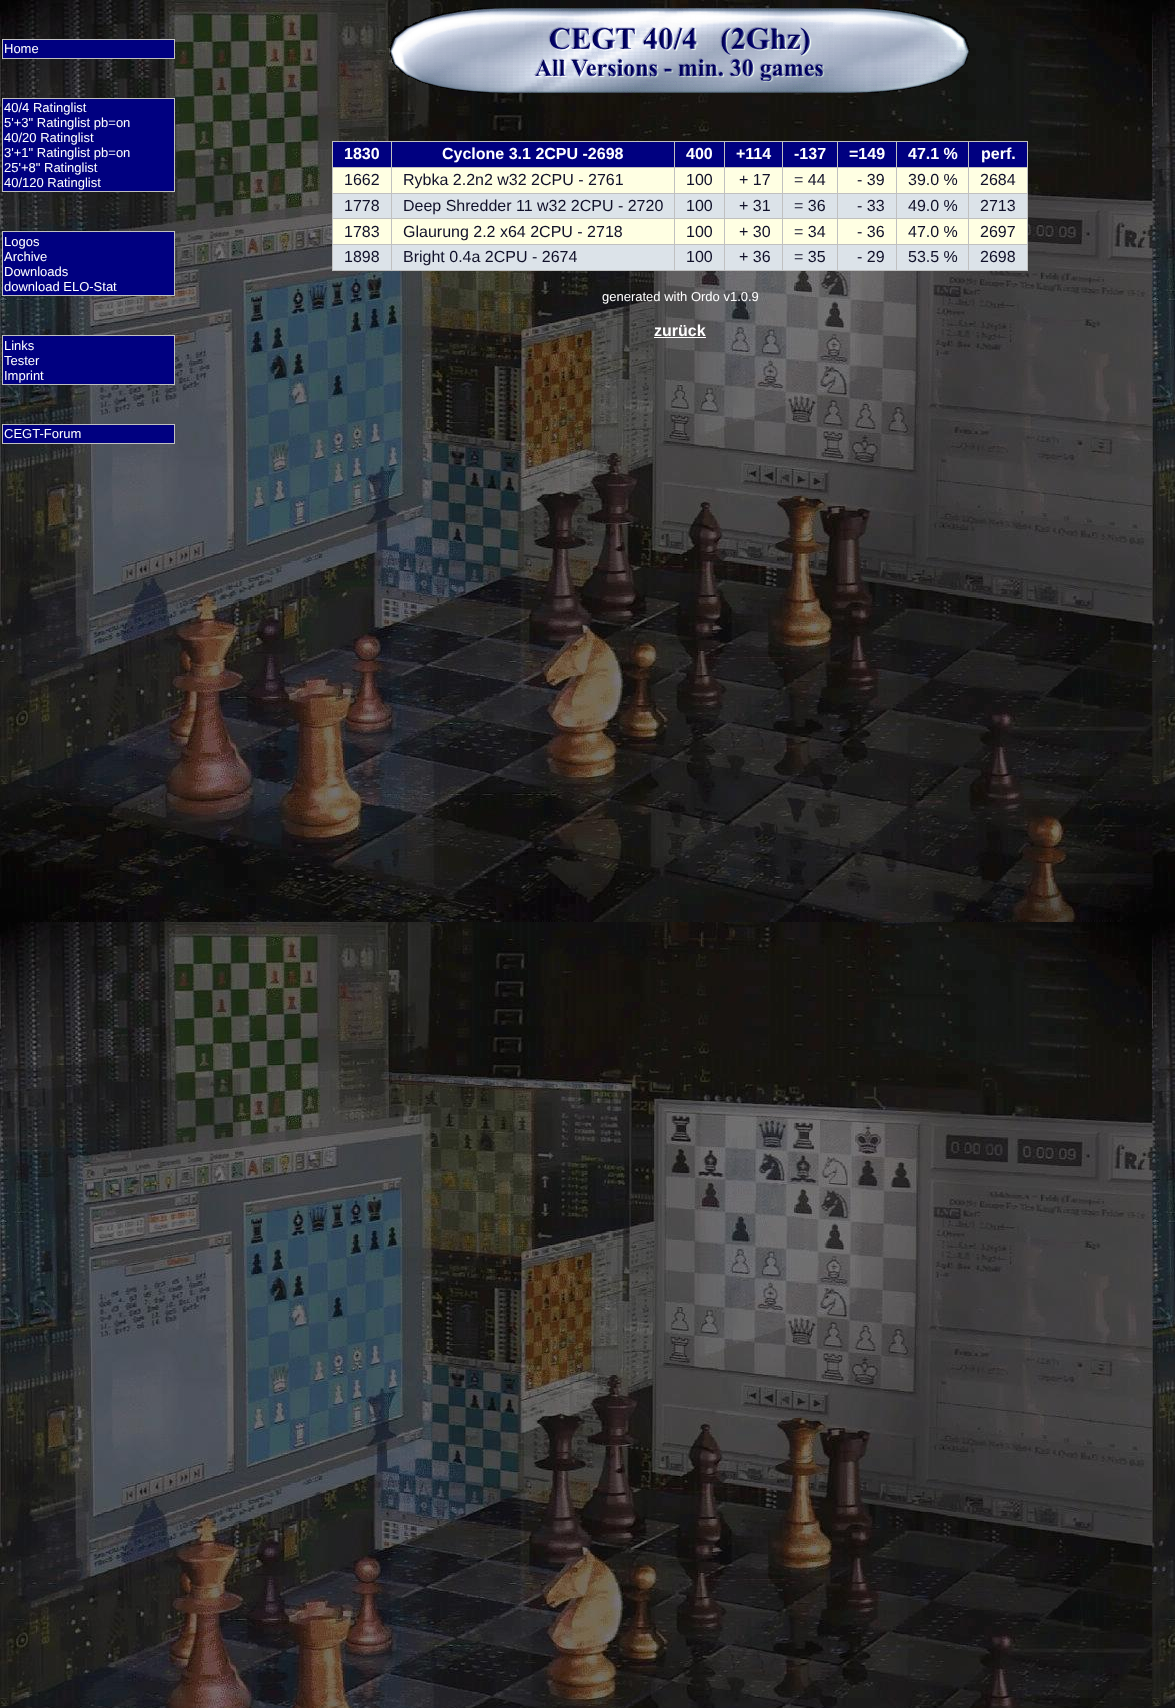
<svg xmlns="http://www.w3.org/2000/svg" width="1175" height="1708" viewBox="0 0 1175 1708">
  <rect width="100%" height="100%" fill="#ffffff"/>
  <image x="0" y="0" width="1175" height="1708" href="img1.png"/>
  <rect x="2.5" y="39.5" width="172" height="19" fill="#000080" stroke="#c0c0c0"/>
  <text x="4" y="53" font-family="Liberation Sans" font-size="13" fill="#ffffff">Home</text>
  <rect x="2.5" y="98.5" width="172" height="93" fill="#000080" stroke="#c0c0c0"/>
  <text x="4" y="112" font-family="Liberation Sans" font-size="13" fill="#ffffff">40/4 Ratinglist</text>
  <text x="4" y="127" font-family="Liberation Sans" font-size="13" fill="#ffffff">5'+3" Ratinglist pb=on</text>
  <text x="4" y="142" font-family="Liberation Sans" font-size="13" fill="#ffffff">40/20 Ratinglist</text>
  <text x="4" y="157" font-family="Liberation Sans" font-size="13" fill="#ffffff">3'+1" Ratinglist pb=on</text>
  <text x="4" y="172" font-family="Liberation Sans" font-size="13" fill="#ffffff">25'+8" Ratinglist</text>
  <text x="4" y="187" font-family="Liberation Sans" font-size="13" fill="#ffffff">40/120 Ratinglist</text>
  <rect x="2.5" y="231.5" width="172" height="64" fill="#000080" stroke="#c0c0c0"/>
  <text x="4" y="246" font-family="Liberation Sans" font-size="13" fill="#ffffff">Logos</text>
  <text x="4" y="261" font-family="Liberation Sans" font-size="13" fill="#ffffff">Archive</text>
  <text x="4" y="276" font-family="Liberation Sans" font-size="13" fill="#ffffff">Downloads</text>
  <text x="4" y="291" font-family="Liberation Sans" font-size="13" fill="#ffffff">download ELO-Stat</text>
  <rect x="2.5" y="335.5" width="172" height="49" fill="#000080" stroke="#c0c0c0"/>
  <text x="4" y="350" font-family="Liberation Sans" font-size="13" fill="#ffffff">Links</text>
  <text x="4" y="365" font-family="Liberation Sans" font-size="13" fill="#ffffff">Tester</text>
  <text x="4" y="380" font-family="Liberation Sans" font-size="13" fill="#ffffff">Imprint</text>
  <rect x="2.5" y="424.5" width="172" height="19" fill="#000080" stroke="#c0c0c0"/>
  <text x="4" y="438" font-family="Liberation Sans" font-size="13" fill="#ffffff">CEGT-Forum</text>
  <image x="390" y="8" width="580" height="85" href="img2.png"/>
  <rect x="333" y="142" width="694" height="25" fill="#000080"/>
  <rect x="968" y="141" width="60" height="1" fill="#c0c0c0"/>
  <rect x="968" y="167" width="60" height="1" fill="#c0c0c0"/>
  <rect x="333" y="168" width="694" height="25" fill="#ffffe3"/>
  <rect x="968" y="193" width="60" height="1" fill="#c0c0c0"/>
  <rect x="333" y="194" width="694" height="24" fill="#dce3e9"/>
  <rect x="968" y="218" width="60" height="1" fill="#c0c0c0"/>
  <rect x="333" y="219" width="694" height="25" fill="#ffffe3"/>
  <rect x="968" y="244" width="60" height="1" fill="#c0c0c0"/>
  <rect x="333" y="245" width="694" height="25" fill="#dce3e9"/>
  <rect x="1027" y="244" width="1" height="27" fill="#c0c0c0"/>
  <rect x="968" y="270" width="60" height="1" fill="#c0c0c0"/>
  <rect x="968" y="244" width="1" height="27" fill="#c0c0c0"/>
  <rect x="896" y="244" width="73" height="1" fill="#c0c0c0"/>
  <rect x="968" y="218" width="1" height="27" fill="#c0c0c0"/>
  <rect x="896" y="218" width="73" height="1" fill="#c0c0c0"/>
  <rect x="968" y="193" width="1" height="26" fill="#c0c0c0"/>
  <rect x="896" y="193" width="73" height="1" fill="#c0c0c0"/>
  <rect x="968" y="167" width="1" height="27" fill="#c0c0c0"/>
  <rect x="896" y="167" width="73" height="1" fill="#c0c0c0"/>
  <rect x="968" y="141" width="1" height="27" fill="#c0c0c0"/>
  <rect x="896" y="141" width="73" height="1" fill="#c0c0c0"/>
  <rect x="896" y="270" width="73" height="1" fill="#c0c0c0"/>
  <rect x="896" y="244" width="1" height="27" fill="#c0c0c0"/>
  <rect x="837" y="244" width="60" height="1" fill="#c0c0c0"/>
  <rect x="896" y="218" width="1" height="27" fill="#c0c0c0"/>
  <rect x="837" y="218" width="60" height="1" fill="#c0c0c0"/>
  <rect x="896" y="193" width="1" height="26" fill="#c0c0c0"/>
  <rect x="837" y="193" width="60" height="1" fill="#c0c0c0"/>
  <rect x="896" y="167" width="1" height="27" fill="#c0c0c0"/>
  <rect x="837" y="167" width="60" height="1" fill="#c0c0c0"/>
  <rect x="896" y="141" width="1" height="27" fill="#c0c0c0"/>
  <rect x="837" y="141" width="60" height="1" fill="#c0c0c0"/>
  <rect x="837" y="270" width="60" height="1" fill="#c0c0c0"/>
  <rect x="837" y="244" width="1" height="27" fill="#c0c0c0"/>
  <rect x="782" y="244" width="56" height="1" fill="#c0c0c0"/>
  <rect x="837" y="218" width="1" height="27" fill="#c0c0c0"/>
  <rect x="782" y="218" width="56" height="1" fill="#c0c0c0"/>
  <rect x="837" y="193" width="1" height="26" fill="#c0c0c0"/>
  <rect x="782" y="193" width="56" height="1" fill="#c0c0c0"/>
  <rect x="837" y="167" width="1" height="27" fill="#c0c0c0"/>
  <rect x="782" y="167" width="56" height="1" fill="#c0c0c0"/>
  <rect x="837" y="141" width="1" height="27" fill="#c0c0c0"/>
  <rect x="782" y="141" width="56" height="1" fill="#c0c0c0"/>
  <rect x="782" y="270" width="56" height="1" fill="#c0c0c0"/>
  <rect x="782" y="244" width="1" height="27" fill="#c0c0c0"/>
  <rect x="724" y="244" width="59" height="1" fill="#c0c0c0"/>
  <rect x="782" y="218" width="1" height="27" fill="#c0c0c0"/>
  <rect x="724" y="218" width="59" height="1" fill="#c0c0c0"/>
  <rect x="782" y="193" width="1" height="26" fill="#c0c0c0"/>
  <rect x="724" y="193" width="59" height="1" fill="#c0c0c0"/>
  <rect x="782" y="167" width="1" height="27" fill="#c0c0c0"/>
  <rect x="724" y="167" width="59" height="1" fill="#c0c0c0"/>
  <rect x="782" y="141" width="1" height="27" fill="#c0c0c0"/>
  <rect x="724" y="141" width="59" height="1" fill="#c0c0c0"/>
  <rect x="724" y="270" width="59" height="1" fill="#c0c0c0"/>
  <rect x="724" y="244" width="1" height="27" fill="#c0c0c0"/>
  <rect x="674" y="244" width="51" height="1" fill="#c0c0c0"/>
  <rect x="724" y="218" width="1" height="27" fill="#c0c0c0"/>
  <rect x="674" y="218" width="51" height="1" fill="#c0c0c0"/>
  <rect x="724" y="193" width="1" height="26" fill="#c0c0c0"/>
  <rect x="674" y="193" width="51" height="1" fill="#c0c0c0"/>
  <rect x="724" y="167" width="1" height="27" fill="#c0c0c0"/>
  <rect x="674" y="167" width="51" height="1" fill="#c0c0c0"/>
  <rect x="724" y="141" width="1" height="27" fill="#c0c0c0"/>
  <rect x="674" y="141" width="51" height="1" fill="#c0c0c0"/>
  <rect x="674" y="270" width="51" height="1" fill="#c0c0c0"/>
  <rect x="674" y="244" width="1" height="27" fill="#c0c0c0"/>
  <rect x="391" y="244" width="284" height="1" fill="#c0c0c0"/>
  <rect x="674" y="218" width="1" height="27" fill="#c0c0c0"/>
  <rect x="391" y="218" width="284" height="1" fill="#c0c0c0"/>
  <rect x="674" y="193" width="1" height="26" fill="#c0c0c0"/>
  <rect x="391" y="193" width="284" height="1" fill="#c0c0c0"/>
  <rect x="674" y="167" width="1" height="27" fill="#c0c0c0"/>
  <rect x="391" y="167" width="284" height="1" fill="#c0c0c0"/>
  <rect x="674" y="141" width="1" height="27" fill="#c0c0c0"/>
  <rect x="391" y="141" width="284" height="1" fill="#c0c0c0"/>
  <rect x="391" y="270" width="284" height="1" fill="#c0c0c0"/>
  <rect x="391" y="244" width="1" height="27" fill="#c0c0c0"/>
  <rect x="332" y="244" width="60" height="1" fill="#c0c0c0"/>
  <rect x="391" y="218" width="1" height="27" fill="#c0c0c0"/>
  <rect x="332" y="218" width="60" height="1" fill="#c0c0c0"/>
  <rect x="391" y="193" width="1" height="26" fill="#c0c0c0"/>
  <rect x="332" y="193" width="60" height="1" fill="#c0c0c0"/>
  <rect x="391" y="167" width="1" height="27" fill="#c0c0c0"/>
  <rect x="332" y="167" width="60" height="1" fill="#c0c0c0"/>
  <rect x="391" y="141" width="1" height="27" fill="#c0c0c0"/>
  <rect x="332" y="141" width="60" height="1" fill="#c0c0c0"/>
  <rect x="332" y="270" width="60" height="1" fill="#c0c0c0"/>
  <rect x="332" y="244" width="1" height="27" fill="#c0c0c0"/>
  <rect x="332" y="218" width="1" height="27" fill="#c0c0c0"/>
  <rect x="332" y="193" width="1" height="26" fill="#c0c0c0"/>
  <rect x="332" y="167" width="1" height="27" fill="#c0c0c0"/>
  <rect x="332" y="141" width="1" height="27" fill="#c0c0c0"/>
  <text x="344" y="159" font-family="Liberation Sans" font-size="16" font-weight="bold" fill="#ffffff">1830</text>
  <text x="442" y="159" font-family="Liberation Sans" font-size="16" font-weight="bold" fill="#ffffff">Cyclone 3.1 2CPU -2698</text>
  <text x="686" y="159" font-family="Liberation Sans" font-size="16" font-weight="bold" fill="#ffffff">400</text>
  <text x="736" y="159" font-family="Liberation Sans" font-size="16" font-weight="bold" fill="#ffffff">+114</text>
  <text x="794" y="159" font-family="Liberation Sans" font-size="16" font-weight="bold" fill="#ffffff">-137</text>
  <text x="849" y="159" font-family="Liberation Sans" font-size="16" font-weight="bold" fill="#ffffff">=149</text>
  <text x="908" y="159" font-family="Liberation Sans" font-size="16" font-weight="bold" fill="#ffffff">47.1 %</text>
  <rect x="1027" y="218" width="1" height="27" fill="#c0c0c0"/>
  <rect x="1027" y="193" width="1" height="26" fill="#c0c0c0"/>
  <rect x="1027" y="167" width="1" height="27" fill="#c0c0c0"/>
  <rect x="1027" y="141" width="1" height="27" fill="#c0c0c0"/>
  <text x="981" y="159" font-family="Liberation Sans" font-size="16" font-weight="bold" fill="#ffffff">perf.</text>
  <text x="344" y="185" font-family="Liberation Sans" font-size="16" fill="#101029">1662</text>
  <text x="403" y="185" font-family="Liberation Sans" font-size="16" fill="#101029">Rybka 2.2n2 w32 2CPU - 2761</text>
  <text x="686" y="185" font-family="Liberation Sans" font-size="16" fill="#101029">100</text>
  <text x="739" y="185" font-family="Liberation Sans" font-size="16" fill="#101029">+ 17</text>
  <text x="794" y="185" font-family="Liberation Sans" font-size="16" fill="#101029">= 44</text>
  <text x="857" y="185" font-family="Liberation Sans" font-size="16" fill="#101029">- 39</text>
  <text x="908" y="185" font-family="Liberation Sans" font-size="16" fill="#101029">39.0 %</text>
  <text x="980" y="185" font-family="Liberation Sans" font-size="16" fill="#101029">2684</text>
  <text x="344" y="211" font-family="Liberation Sans" font-size="16" fill="#101029">1778</text>
  <text x="403" y="211" font-family="Liberation Sans" font-size="16" fill="#101029">Deep Shredder 11 w32 2CPU - 2720</text>
  <text x="686" y="211" font-family="Liberation Sans" font-size="16" fill="#101029">100</text>
  <text x="739" y="211" font-family="Liberation Sans" font-size="16" fill="#101029">+ 31</text>
  <text x="794" y="211" font-family="Liberation Sans" font-size="16" fill="#101029">= 36</text>
  <text x="857" y="211" font-family="Liberation Sans" font-size="16" fill="#101029">- 33</text>
  <text x="908" y="211" font-family="Liberation Sans" font-size="16" fill="#101029">49.0 %</text>
  <text x="980" y="211" font-family="Liberation Sans" font-size="16" fill="#101029">2713</text>
  <text x="344" y="237" font-family="Liberation Sans" font-size="16" fill="#101029">1783</text>
  <text x="403" y="237" font-family="Liberation Sans" font-size="16" fill="#101029">Glaurung 2.2 x64 2CPU - 2718</text>
  <text x="686" y="237" font-family="Liberation Sans" font-size="16" fill="#101029">100</text>
  <text x="739" y="237" font-family="Liberation Sans" font-size="16" fill="#101029">+ 30</text>
  <text x="794" y="237" font-family="Liberation Sans" font-size="16" fill="#101029">= 34</text>
  <text x="857" y="237" font-family="Liberation Sans" font-size="16" fill="#101029">- 36</text>
  <text x="908" y="237" font-family="Liberation Sans" font-size="16" fill="#101029">47.0 %</text>
  <text x="980" y="237" font-family="Liberation Sans" font-size="16" fill="#101029">2697</text>
  <text x="344" y="262" font-family="Liberation Sans" font-size="16" fill="#101029">1898</text>
  <text x="403" y="262" font-family="Liberation Sans" font-size="16" fill="#101029">Bright 0.4a 2CPU - 2674</text>
  <text x="686" y="262" font-family="Liberation Sans" font-size="16" fill="#101029">100</text>
  <text x="739" y="262" font-family="Liberation Sans" font-size="16" fill="#101029">+ 36</text>
  <text x="794" y="262" font-family="Liberation Sans" font-size="16" fill="#101029">= 35</text>
  <text x="857" y="262" font-family="Liberation Sans" font-size="16" fill="#101029">- 29</text>
  <text x="908" y="262" font-family="Liberation Sans" font-size="16" fill="#101029">53.5 %</text>
  <text x="980" y="262" font-family="Liberation Sans" font-size="16" fill="#101029">2698</text>
  <text x="602" y="301" font-family="Liberation Sans" font-size="13" fill="#ffffff">generated with Ordo v1.0.9</text>
  <text x="654" y="336" font-family="Liberation Sans" font-size="16" font-weight="bold" fill="#ffffff">zurück</text>
  <rect x="654" y="337" width="52" height="1" fill="#ffffff"/>
</svg>
